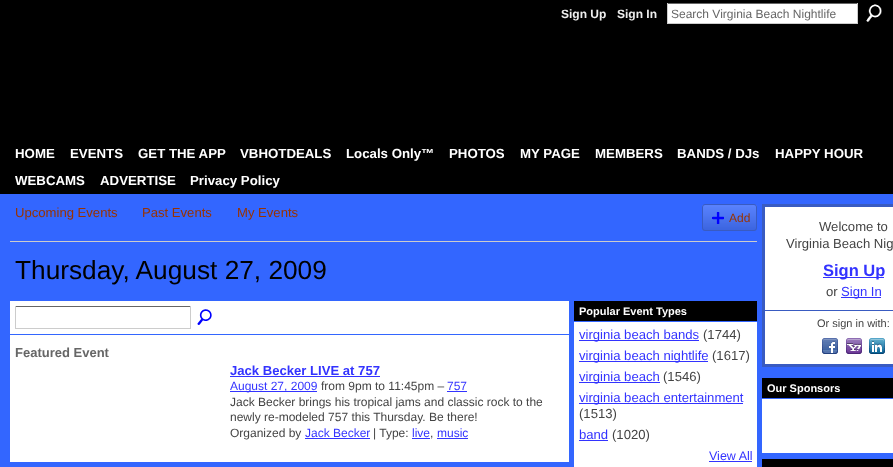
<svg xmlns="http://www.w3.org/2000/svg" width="893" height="467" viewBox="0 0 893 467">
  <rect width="100%" height="100%" fill="#000000"/>
  <text x="561" y="18" font-family="Liberation Sans" font-size="12" font-weight="bold" fill="#eeeeee">Sign Up</text>
  <text x="617" y="18" font-family="Liberation Sans" font-size="12" font-weight="bold" fill="#eeeeee">Sign In</text>
  <rect x="668" y="4" width="189" height="19" fill="#ffffff"/>
  <rect x="667" y="3" width="191" height="1" fill="#666666"/>
  <rect x="857" y="3" width="1" height="21" fill="#cccccc"/>
  <rect x="667" y="23" width="191" height="1" fill="#cccccc"/>
  <rect x="667" y="3" width="1" height="21" fill="#cccccc"/>
  <text x="671" y="18" font-family="Liberation Sans" font-size="12" fill="#666666">Search Virginia Beach Nightlife</text>
  <image x="866" y="4" width="16" height="18" href="img1.png"/>
  <text x="15" y="158" font-family="Liberation Sans" font-size="13.25" font-weight="bold" fill="#ffffff">HOME</text>
  <text x="70" y="158" font-family="Liberation Sans" font-size="13.25" font-weight="bold" fill="#ffffff">EVENTS</text>
  <text x="138" y="158" font-family="Liberation Sans" font-size="13.25" font-weight="bold" fill="#ffffff">GET THE APP</text>
  <text x="240" y="158" font-family="Liberation Sans" font-size="13.25" font-weight="bold" fill="#ffffff">VBHOTDEALS</text>
  <text x="346" y="158" font-family="Liberation Sans" font-size="13.25" font-weight="bold" fill="#ffffff">Locals Only™</text>
  <text x="449" y="158" font-family="Liberation Sans" font-size="13.25" font-weight="bold" fill="#ffffff">PHOTOS</text>
  <text x="520" y="158" font-family="Liberation Sans" font-size="13.25" font-weight="bold" fill="#ffffff">MY PAGE</text>
  <text x="595" y="158" font-family="Liberation Sans" font-size="13.25" font-weight="bold" fill="#ffffff">MEMBERS</text>
  <text x="677" y="158" font-family="Liberation Sans" font-size="13.25" font-weight="bold" fill="#ffffff">BANDS / DJs</text>
  <text x="775" y="158" font-family="Liberation Sans" font-size="13.25" font-weight="bold" fill="#ffffff">HAPPY HOUR</text>
  <text x="15" y="185" font-family="Liberation Sans" font-size="13.25" font-weight="bold" fill="#ffffff">WEBCAMS</text>
  <text x="100" y="185" font-family="Liberation Sans" font-size="13.25" font-weight="bold" fill="#ffffff">ADVERTISE</text>
  <text x="190" y="185" font-family="Liberation Sans" font-size="13.25" font-weight="bold" fill="#ffffff">Privacy Policy</text>
  <rect x="0" y="194" width="893" height="273" fill="#3366ff"/>
  <rect x="10" y="241" width="747" height="1" fill="#cccccc"/>
  <text x="15" y="217" font-family="Liberation Sans" font-size="13.1" fill="#993300">Upcoming Events</text>
  <text x="142" y="217" font-family="Liberation Sans" font-size="13.1" fill="#993300">Past Events</text>
  <text x="237" y="217" font-family="Liberation Sans" font-size="13.1" fill="#993300">My Events</text>
  <image x="702" y="205" width="55" height="26" href="img2.png"/>
  <rect x="702.5" y="204.5" width="54" height="26" rx="2.5" fill="none" stroke="#395bc1"/>
  <image x="712" y="212" width="12" height="12" href="img3.png"/>
  <text x="729" y="222" font-family="Liberation Sans" font-size="12" fill="#993300">Add</text>
  <text x="15" y="279" font-family="Liberation Sans" font-size="26.25" fill="#000000">Thursday, August 27, 2009</text>
  <rect x="10" y="301" width="559" height="33" fill="#ffffff"/>
  <rect x="15" y="306" width="176" height="1" fill="#666666"/>
  <rect x="190" y="306" width="1" height="23" fill="#cccccc"/>
  <rect x="15" y="328" width="176" height="1" fill="#cccccc"/>
  <rect x="15" y="306" width="1" height="23" fill="#cccccc"/>
  <image x="197" y="309" width="15" height="16" href="img4.png"/>
  <rect x="10" y="335" width="559" height="127" fill="#ffffff"/>
  <text x="15" y="357" font-family="Liberation Sans" font-size="13" font-weight="bold" fill="#666666">Featured Event</text>
  <text x="230" y="375" font-family="Liberation Sans" font-size="13.1" font-weight="bold" fill="#3333ff">Jack Becker LIVE at 757</text>
  <rect x="230" y="376" width="150" height="1" fill="#3333ff"/>
  <rect x="230" y="391" width="87" height="1" fill="#3333ff"/>
  <text x="230" y="390" font-family="Liberation Sans" font-size="12" fill="#3333ff">August 27, 2009</text>
  <text x="321" y="390" font-family="Liberation Sans" font-size="12" fill="#444444">from 9pm to 11:45pm –</text>
  <text x="447" y="390" font-family="Liberation Sans" font-size="12" fill="#3333ff">757</text>
  <rect x="447" y="391" width="20" height="1" fill="#3333ff"/>
  <text x="230" y="406" font-family="Liberation Sans" font-size="12" fill="#444444">Jack Becker brings his tropical jams and classic rock to the</text>
  <text x="230" y="421" font-family="Liberation Sans" font-size="12" fill="#444444">newly re-modeled 757 this Thursday. Be there!</text>
  <text x="230" y="437" font-family="Liberation Sans" font-size="12" fill="#444444">Organized by</text>
  <text x="305" y="437" font-family="Liberation Sans" font-size="12" fill="#3333ff">Jack Becker</text>
  <rect x="305" y="438" width="65" height="1" fill="#3333ff"/>
  <text x="373" y="437" font-family="Liberation Sans" font-size="12" fill="#444444">| Type:</text>
  <text x="412" y="437" font-family="Liberation Sans" font-size="12" fill="#3333ff">live</text>
  <rect x="412" y="438" width="18" height="1" fill="#3333ff"/>
  <text x="430" y="437" font-family="Liberation Sans" font-size="12" fill="#444444">,</text>
  <text x="437" y="437" font-family="Liberation Sans" font-size="12" fill="#3333ff">music</text>
  <rect x="437" y="438" width="31" height="1" fill="#3333ff"/>
  <rect x="574" y="301" width="183" height="20" fill="#000000"/>
  <text x="579" y="315" font-family="Liberation Sans" font-size="11" font-weight="bold" fill="#ffffff">Popular Event Types</text>
  <rect x="574" y="322" width="183" height="145" fill="#ffffff"/>
  <rect x="579" y="340" width="120" height="1" fill="#3333ff"/>
  <text x="579" y="339" font-family="Liberation Sans" font-size="13.1" fill="#3333ff">virginia beach bands</text>
  <text x="703" y="339" font-family="Liberation Sans" font-size="13.1" fill="#444444">(1744)</text>
  <rect x="579" y="361" width="129" height="1" fill="#3333ff"/>
  <text x="579" y="360" font-family="Liberation Sans" font-size="13.1" fill="#3333ff">virginia beach nightlife</text>
  <text x="712" y="360" font-family="Liberation Sans" font-size="13.1" fill="#444444">(1617)</text>
  <rect x="579" y="382" width="81" height="1" fill="#3333ff"/>
  <text x="579" y="381" font-family="Liberation Sans" font-size="13.1" fill="#3333ff">virginia beach</text>
  <text x="663" y="381" font-family="Liberation Sans" font-size="13.1" fill="#444444">(1546)</text>
  <rect x="579" y="403" width="164" height="1" fill="#3333ff"/>
  <text x="579" y="402" font-family="Liberation Sans" font-size="13.1" fill="#3333ff">virginia beach entertainment</text>
  <text x="579" y="418" font-family="Liberation Sans" font-size="13.1" fill="#444444">(1513)</text>
  <text x="579" y="439" font-family="Liberation Sans" font-size="13.1" fill="#3333ff">band</text>
  <rect x="579" y="440" width="29" height="1" fill="#3333ff"/>
  <text x="612" y="439" font-family="Liberation Sans" font-size="13.1" fill="#444444">(1020)</text>
  <text x="709" y="460" font-family="Liberation Sans" font-size="12.5" fill="#3333ff">View All</text>
  <rect x="709" y="461" width="43" height="1" fill="#3333ff"/>
  <rect x="763.5" y="205.5" width="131" height="160" fill="#ffffff" stroke="#395bc1" stroke-width="3"/>
  <text x="819" y="231" font-family="Liberation Sans" font-size="13.1" fill="#444444">Welcome to</text>
  <text x="786" y="248" font-family="Liberation Sans" font-size="13.1" fill="#444444">Virginia Beach Nig</text>
  <rect x="823" y="277" width="61" height="1" fill="#3333ff"/>
  <text x="823" y="276" font-family="Liberation Sans" font-size="16.5" font-weight="bold" fill="#3333ff">Sign Up</text>
  <text x="826" y="296" font-family="Liberation Sans" font-size="13.1" fill="#444444">or</text>
  <rect x="841" y="297" width="40" height="1" fill="#3333ff"/>
  <text x="841" y="296" font-family="Liberation Sans" font-size="13.1" fill="#3333ff">Sign In</text>
  <rect x="765" y="310" width="128" height="1" fill="#395bc1"/>
  <text x="817" y="327" font-family="Liberation Sans" font-size="11" fill="#444444">Or sign in with:</text>
  <image x="822" y="338" width="16" height="16" href="img5.png"/>
  <image x="846" y="338" width="16" height="16" href="img6.png"/>
  <image x="869" y="338" width="16" height="16" href="img7.png"/>
  <rect x="762" y="378" width="131" height="20" fill="#000000"/>
  <text x="767" y="392" font-family="Liberation Sans" font-size="11" font-weight="bold" fill="#ffffff">Our Sponsors</text>
  <rect x="762" y="399" width="131" height="54" fill="#ffffff"/>
  <rect x="762" y="459" width="131" height="8" fill="#000000"/>
</svg>
